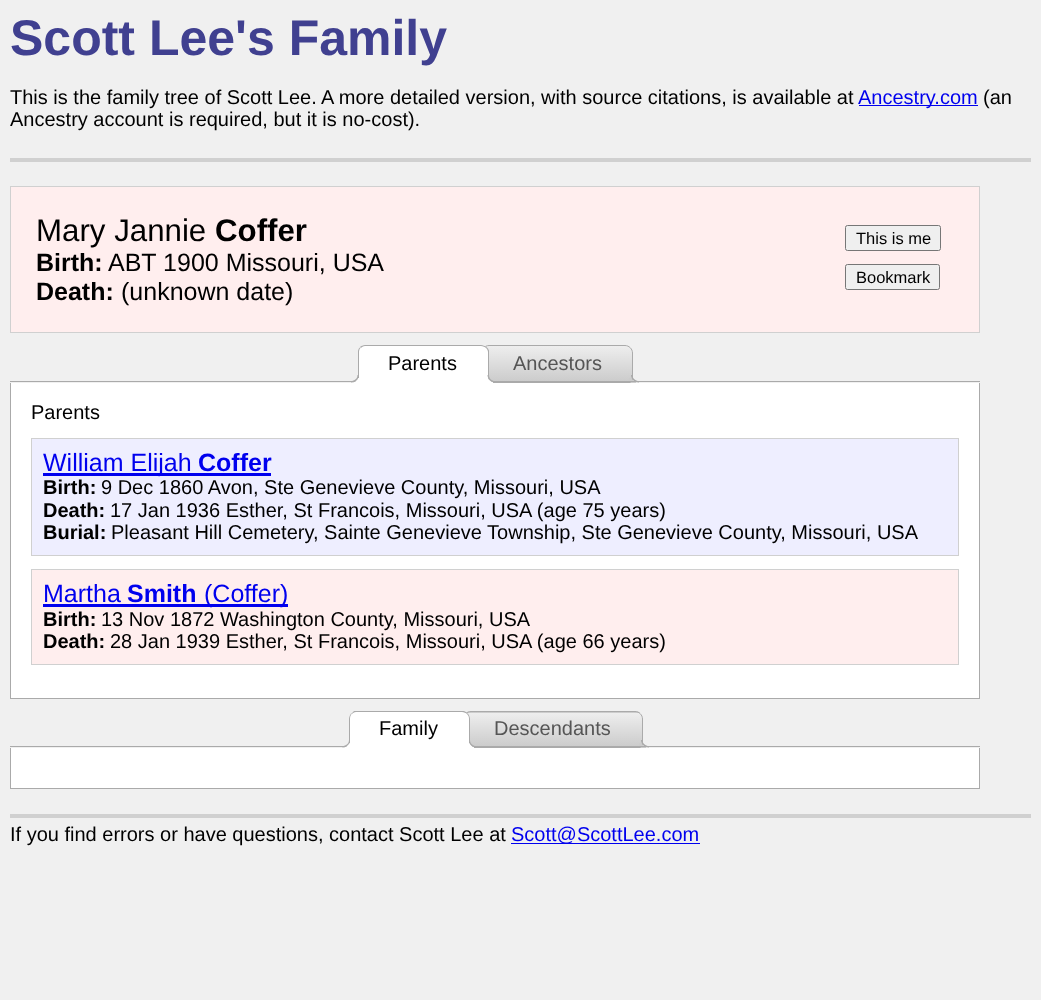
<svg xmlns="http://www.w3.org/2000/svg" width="1041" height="1000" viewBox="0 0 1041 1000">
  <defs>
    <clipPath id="clip1"><path d="M489 345H625C629.5 345 633 348.5 633 353V383H481V353C481 348.5 484.5 345 489 345Z"/></clipPath>
    <linearGradient id="g1" gradientUnits="userSpaceOnUse" x1="557" y1="346" x2="557" y2="381"><stop offset="0" stop-color="#eeeeee"/><stop offset="1" stop-color="#cccccc"/></linearGradient>
    <clipPath id="clip2"><rect x="10" y="345" width="970" height="38"/></clipPath>
    <clipPath id="clip3"><path d="M471 711H635C639.5 711 643 714.5 643 719V748H463V719C463 714.5 466.5 711 471 711Z"/></clipPath>
    <linearGradient id="g2" gradientUnits="userSpaceOnUse" x1="553" y1="679" x2="553" y2="713"><stop offset="0" stop-color="#eeeeee"/><stop offset="1" stop-color="#cccccc"/></linearGradient>
    <linearGradient id="g3" gradientUnits="userSpaceOnUse" x1="553" y1="713" x2="553" y2="746"><stop offset="0" stop-color="#eeeeee"/><stop offset="1" stop-color="#cccccc"/></linearGradient>
    <clipPath id="clip4"><rect x="10" y="711" width="970" height="37"/></clipPath>
  </defs>
  <rect width="100%" height="100%" fill="#f0f0f0"/>
  <rect x="10" y="158" width="1021" height="4" fill="#d0d0d0"/>
  <text x="10" y="55" font-family="Liberation Sans" font-size="50" font-weight="bold" fill="#404090">Scott Lee's Family</text>
  <text x="10" y="104" font-family="Liberation Sans" font-size="20" fill="#000000">This is the family tree of Scott Lee.</text>
  <text x="321" y="104" font-family="Liberation Sans" font-size="20" fill="#000000">A more detailed version, with source citations, is available at</text>
  <rect x="859" y="105" width="119" height="1" fill="#0000ee"/>
  <text x="858" y="104" font-family="Liberation Sans" font-size="20" fill="#0000ee">Ancestry.com</text>
  <text x="983" y="104" font-family="Liberation Sans" font-size="20" fill="#000000">(an</text>
  <text x="10" y="126" font-family="Liberation Sans" font-size="20" fill="#000000">Ancestry account is required, but it is no-cost).</text>
  <rect x="10.5" y="186.5" width="969" height="146" fill="#ffeeee" stroke="#d0d0d0"/>
  <text x="36" y="241" font-family="Liberation Sans" font-size="31.25" fill="#000000">Mary Jannie</text>
  <text x="215" y="241" font-family="Liberation Sans" font-size="31.25" font-weight="bold" fill="#000000">Coffer</text>
  <text x="36" y="271" font-family="Liberation Sans" font-size="25" font-weight="bold" fill="#000000">Birth:</text>
  <text x="108" y="271" font-family="Liberation Sans" font-size="25" fill="#000000">ABT 1900 Missouri, USA</text>
  <text x="36" y="300" font-family="Liberation Sans" font-size="25" font-weight="bold" fill="#000000">Death:</text>
  <text x="121" y="300" font-family="Liberation Sans" font-size="25" fill="#000000">(unknown date)</text>
  <rect x="845.5" y="225.5" width="95" height="25" rx="2" fill="#efefef" stroke="#767676"/>
  <text x="856" y="244" font-family="Liberation Sans" font-size="16.5" fill="#000000">This is me</text>
  <rect x="845.5" y="264.5" width="94" height="25" rx="2" fill="#efefef" stroke="#767676"/>
  <text x="856" y="283" font-family="Liberation Sans" font-size="16.5" fill="#000000">Bookmark</text>
  <g clip-path="url(#clip1)">
    <rect x="484" y="346" width="149" height="35" fill="url(#g1)"/>
  </g>
  <path d="M489 345.5H625C629 345.5 632.5 349 632.5 353V382.5H481.5V353C481.5 349 485 345.5 489 345.5Z" fill="none" stroke="#aaaaaa"/>
  <g clip-path="url(#clip2)">
    <path d="M629 378C629 382 632 385 636 385V382C634 381.5 632.5 380 632 378Z" fill="#cccccc"/>
  </g>
  <path d="M631 375H639V382.5C634.5 382.5 631 379 631 375ZM632.5 375H639V381C635.5 381 632.5 378.5 632.5 375Z" fill="#aaaaaa" fill-rule="evenodd"/>
  <rect x="10" y="381" width="970" height="1" fill="#aaaaaa"/>
  <path d="M366 345H481C485.5 345 489 348.5 489 353V383H358V353C358 348.5 361.5 345 366 345Z" fill="#ffffff"/>
  <path d="M365 345C363 345 361 346 360 347L361 348C362 347 363 346 365 346H481C483 346 485 347 486 348L487 347C485 346 483 345 481 345Z" fill="#aaaaaa"/>
  <path d="M489 382H488L487 381H488V352C488 350.5 487 349 486 348L486.5 347C487.5 348 488.5 349 489 350.5Z" fill="#aaaaaa"/>
  <path d="M488 382H358L359 381H487Z" fill="#ffffff"/>
  <path d="M360 347.5C358.5 348.5 358 350 358 352V382L359 381V352C359 350.5 359.5 349 360.5 348Z" fill="#aaaaaa"/>
  <text x="388" y="370" font-family="Liberation Sans" font-size="20" fill="#000000">Parents</text>
  <g clip-path="url(#clip2)">
    <path d="M354 382V385C358 385 361 382 361 378H358C357.5 380 356 381.5 354 382Z" fill="#ffffff"/>
  </g>
  <path d="M351 375H359C359 379 355.5 382.5 351 382.5ZM351 375H357.5C357.5 378.5 354.5 381 351 381Z" fill="#aaaaaa" fill-rule="evenodd"/>
  <g clip-path="url(#clip2)">
    <path d="M485 378C485 382.5 489 385 493 385V382C491 381.5 489 380 488 378Z" fill="#ffffff"/>
  </g>
  <path d="M487.5 375H495V382.5C491 382.5 487.5 379 487.5 375ZM489 375H495V381C491.5 381 489 378.5 489 375Z" fill="#aaaaaa" fill-rule="evenodd"/>
  <text x="513" y="370" font-family="Liberation Sans" font-size="20" fill="#555555">Ancestors</text>
  <rect x="11" y="383" width="968" height="315" fill="#ffffff"/>
  <rect x="979" y="383" width="1" height="316" fill="#aaaaaa"/>
  <rect x="10" y="698" width="970" height="1" fill="#aaaaaa"/>
  <rect x="10" y="383" width="1" height="316" fill="#aaaaaa"/>
  <text x="31" y="419" font-family="Liberation Sans" font-size="20" fill="#000000">Parents</text>
  <rect x="31.5" y="438.5" width="927" height="117" fill="#eeeeff" stroke="#d0d0d0"/>
  <rect x="43" y="473" width="228" height="3" fill="#0000ee"/>
  <text x="43" y="471" font-family="Liberation Sans" font-size="25" fill="#0000ee">William Elijah</text>
  <text x="198" y="471" font-family="Liberation Sans" font-size="25" font-weight="bold" fill="#0000ee">Coffer</text>
  <text x="43" y="494" font-family="Liberation Sans" font-size="20" font-weight="bold" fill="#000000">Birth:</text>
  <text x="101" y="494" font-family="Liberation Sans" font-size="20" fill="#000000">9 Dec 1860 Avon, Ste Genevieve County, Missouri, USA</text>
  <text x="43" y="517" font-family="Liberation Sans" font-size="20" font-weight="bold" fill="#000000">Death:</text>
  <text x="110" y="517" font-family="Liberation Sans" font-size="20" fill="#000000">17 Jan 1936 Esther, St Francois, Missouri, USA (age 75 years)</text>
  <text x="43" y="539" font-family="Liberation Sans" font-size="20" font-weight="bold" fill="#000000">Burial:</text>
  <text x="111" y="539" font-family="Liberation Sans" font-size="20" fill="#000000">Pleasant Hill Cemetery, Sainte Genevieve Township, Ste Genevieve County, Missouri, USA</text>
  <rect x="31.5" y="569.5" width="927" height="95" fill="#ffeeee" stroke="#d0d0d0"/>
  <text x="43" y="602" font-family="Liberation Sans" font-size="25" fill="#0000ee">Martha</text>
  <text x="127" y="602" font-family="Liberation Sans" font-size="25" font-weight="bold" fill="#0000ee">Smith</text>
  <rect x="43" y="604" width="245" height="3" fill="#0000ee"/>
  <text x="204" y="602" font-family="Liberation Sans" font-size="25" fill="#0000ee">(Coffer)</text>
  <text x="43" y="626" font-family="Liberation Sans" font-size="20" font-weight="bold" fill="#000000">Birth:</text>
  <text x="101" y="626" font-family="Liberation Sans" font-size="20" fill="#000000">13 Nov 1872 Washington County, Missouri, USA</text>
  <text x="43" y="648" font-family="Liberation Sans" font-size="20" font-weight="bold" fill="#000000">Death:</text>
  <text x="110" y="648" font-family="Liberation Sans" font-size="20" fill="#000000">28 Jan 1939 Esther, St Francois, Missouri, USA (age 66 years)</text>
  <g clip-path="url(#clip3)">
    <rect x="463" y="711" width="180" height="2" fill="url(#g2)"/>
    <rect x="467" y="713" width="176" height="33" fill="url(#g3)"/>
  </g>
  <path d="M471 711.5H635C639 711.5 642.5 715 642.5 719V747.5H463.5V719C463.5 715 467 711.5 471 711.5Z" fill="none" stroke="#aaaaaa"/>
  <g clip-path="url(#clip4)">
    <path d="M639 743C639 747 642 750 646 750V747C644 746.5 642.5 745 642 743Z" fill="#cccccc"/>
  </g>
  <path d="M641 740H649V747.5C644.5 747.5 641 744 641 740ZM642.5 740H649V746C645.5 746 642.5 743.5 642.5 740Z" fill="#aaaaaa" fill-rule="evenodd"/>
  <rect x="10" y="746" width="970" height="1" fill="#aaaaaa"/>
  <path d="M357 711H462C466.5 711 470 714.5 470 719V748H349V719C349 714.5 352.5 711 357 711Z" fill="#ffffff"/>
  <path d="M356 712C354 712 353 713 352 714H351L354 711H464L468 713L467 714C466 713 464 712 462 712Z" fill="#aaaaaa"/>
  <path d="M470 747.5V719C470 717 469 715 468 713.5L467 714C468.5 715.5 469 717 469 719V746H468.5Z" fill="#aaaaaa"/>
  <path d="M470 748H349L350 746H468Z" fill="#ffffff"/>
  <path d="M349 747V719C349 717 350 715 351 713.5L351.5 714C350.5 715.5 350 717 350 719V746Z" fill="#aaaaaa"/>
  <text x="379" y="735" font-family="Liberation Sans" font-size="20" fill="#000000">Family</text>
  <g clip-path="url(#clip4)">
    <path d="M345 747V750C349 750 353 747.5 353 743H349.5C348.5 745 347 746.5 345 747Z" fill="#ffffff"/>
  </g>
  <path d="M342.5 740H350C350 744 346.5 747.5 342.5 747.5ZM342.5 740H349C349 743.5 346 746 342.5 746Z" fill="#aaaaaa" fill-rule="evenodd"/>
  <g clip-path="url(#clip4)">
    <path d="M466 743C466 747.5 470 750 474 750V747C472 746.5 470 745 469.5 743Z" fill="#ffffff"/>
  </g>
  <path d="M469 740H476V747.5C472 747.5 469 744 469 740ZM470 740H476V746C473 746 470 743.5 470 740Z" fill="#aaaaaa" fill-rule="evenodd"/>
  <text x="494" y="735" font-family="Liberation Sans" font-size="20" fill="#555555">Descendants</text>
  <rect x="11" y="748" width="968" height="40" fill="#ffffff"/>
  <rect x="979" y="748" width="1" height="41" fill="#aaaaaa"/>
  <rect x="10" y="788" width="970" height="1" fill="#aaaaaa"/>
  <rect x="10" y="748" width="1" height="41" fill="#aaaaaa"/>
  <rect x="10" y="814" width="1021" height="4" fill="#d0d0d0"/>
  <text x="10" y="841" font-family="Liberation Sans" font-size="20" fill="#000000">If you find errors or have questions, contact Scott Lee at</text>
  <rect x="511" y="843" width="189" height="1" fill="#0000ee"/>
  <text x="511" y="841" font-family="Liberation Sans" font-size="20" fill="#0000ee">Scott@ScottLee.com</text>
</svg>
